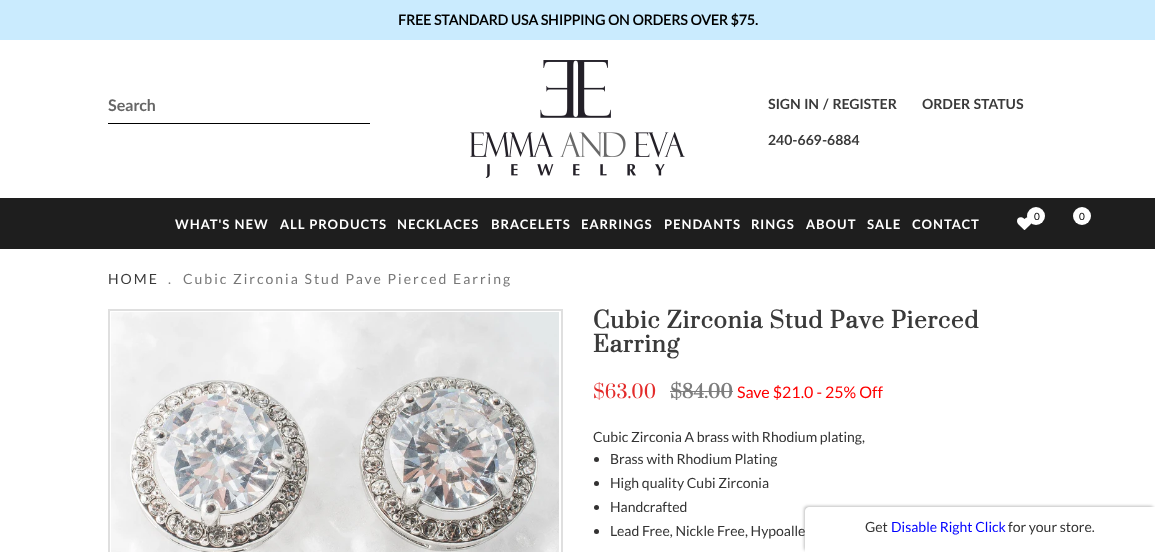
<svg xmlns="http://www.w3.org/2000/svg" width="1155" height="552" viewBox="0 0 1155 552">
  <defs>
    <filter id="blur1" x="-50%" y="-200%" width="200%" height="500%"><feGaussianBlur stdDeviation="1.5"/></filter>
  </defs>
  <rect width="100%" height="100%" fill="#ffffff"/>
  <rect x="0" y="0" width="1155" height="40" fill="#caebfe"/>
  <text x="398" y="25" font-family="'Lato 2'" font-size="14" font-weight="bold" fill="#000000">FREE STANDARD USA SHIPPING ON ORDERS OVER $75.</text>
  <text x="108" y="111" font-family="Lato" font-size="16" font-weight="bold" fill="#666666">Search</text>
  <rect x="108" y="123" width="262" height="1" fill="#000000"/>
  <image x="470" y="60" width="215" height="118" href="img1.png"/>
  <text x="768" y="109" font-family="Lato" font-size="14" font-weight="bold" fill="#3a3a3a">SIGN IN / REGISTER</text>
  <text x="922" y="109" font-family="Lato" font-size="14" font-weight="bold" fill="#3a3a3a">ORDER STATUS</text>
  <text x="768" y="145" font-family="Lato" font-size="14" font-weight="bold" fill="#3a3a3a">240-669-6884</text>
  <rect x="0" y="198" width="1155" height="51" fill="#1e1e1e"/>
  <image x="1017" y="217" width="15" height="13" href="img2.png"/>
  <circle cx="1036" cy="216" r="9" fill="#ffffff"/>
  <text x="1034" y="220" font-family="Lato" font-size="10" fill="#000000">0</text>
  <circle cx="1082" cy="216" r="9" fill="#ffffff"/>
  <text x="1079" y="220" font-family="Lato" font-size="10" fill="#000000">0</text>
  <text x="175" y="229" font-family="Lato" font-size="13" font-weight="bold" letter-spacing="1" fill="#ffffff">WHAT'S NEW</text>
  <text x="280" y="229" font-family="Lato" font-size="13" font-weight="bold" letter-spacing="1" fill="#ffffff">ALL PRODUCTS</text>
  <text x="397" y="229" font-family="Lato" font-size="13" font-weight="bold" letter-spacing="1" fill="#ffffff">NECKLACES</text>
  <text x="491" y="229" font-family="Lato" font-size="13" font-weight="bold" letter-spacing="1" fill="#ffffff">BRACELETS</text>
  <text x="581" y="229" font-family="Lato" font-size="13" font-weight="bold" letter-spacing="1" fill="#ffffff">EARRINGS</text>
  <text x="664" y="229" font-family="Lato" font-size="13" font-weight="bold" letter-spacing="1" fill="#ffffff">PENDANTS</text>
  <text x="751" y="229" font-family="Lato" font-size="13" font-weight="bold" letter-spacing="1" fill="#ffffff">RINGS</text>
  <text x="806" y="229" font-family="Lato" font-size="13" font-weight="bold" letter-spacing="1" fill="#ffffff">ABOUT</text>
  <text x="867" y="229" font-family="Lato" font-size="13" font-weight="bold" letter-spacing="1" fill="#ffffff">SALE</text>
  <text x="912" y="229" font-family="Lato" font-size="13" font-weight="bold" letter-spacing="1" fill="#ffffff">CONTACT</text>
  <text x="108" y="284" font-family="Lato" font-size="14" letter-spacing="2" fill="#3a3a3a">HOME</text>
  <text x="168" y="284" font-family="Lato" font-size="14" letter-spacing="2" fill="#777777">.</text>
  <text x="183" y="284" font-family="Lato" font-size="14" letter-spacing="2" fill="#777777">Cubic Zirconia Stud Pave Pierced Earring</text>
  <rect x="109" y="310" width="453" height="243" fill="none" stroke="#dfdfdf" stroke-width="2"/>
  <image x="111" y="312" width="448" height="240" href="img3.png"/>
  <text x="593" y="328" font-family="Prata" font-size="22" font-weight="bold" letter-spacing="1" fill="#3a3a3a">Cubic Zirconia Stud Pave Pierced</text>
  <text x="593" y="352" font-family="Prata" font-size="22" font-weight="bold" letter-spacing="1" fill="#3a3a3a">Earring</text>
  <text x="593" y="398" font-family="Prata" font-size="18" fill="#e32c2b">$63.00</text>
  <text x="670" y="398" font-family="Prata" font-size="18" font-weight="bold" fill="#7d7d7d">$84.00</text>
  <rect x="670" y="391" width="63" height="1" fill="#7d7d7d"/>
  <text x="737" y="398" font-family="Lato" font-size="16" fill="#ff0000">Save $21.0 - 25% Off</text>
  <text x="593" y="442" font-family="Lato" font-size="14" fill="#333333">Cubic Zirconia A brass with Rhodium plating,</text>
  <circle cx="596.5" cy="459.5" r="2.5" fill="#333232"/>
  <text x="610" y="464" font-family="Lato" font-size="14" fill="#333333">Brass with Rhodium Plating</text>
  <circle cx="596.5" cy="483.5" r="2.5" fill="#333232"/>
  <text x="610" y="488" font-family="Lato" font-size="14" fill="#333333">High quality Cubi Zirconia</text>
  <circle cx="596.5" cy="507.5" r="2.5" fill="#333232"/>
  <text x="610" y="512" font-family="Lato" font-size="14" fill="#333333">Handcrafted</text>
  <circle cx="596.5" cy="531.5" r="2.5" fill="#333232"/>
  <text x="610" y="536" font-family="Lato" font-size="14" fill="#333333">Lead Free, Nickle Free, Hypoalle</text>
  <rect x="804" y="506" width="350" height="45" rx="4" fill="#000000" fill-opacity="0.25" filter="url(#blur1)"/>
  <path d="M809 507H1155V552H805V511C805 509 807 507 809 507Z" fill="#ffffff"/>
  <text x="865" y="532" font-family="Lato" font-size="14" fill="#333333">Get</text>
  <text x="891" y="532" font-family="Lato" font-size="14" fill="#0000ff">Disable Right Click</text>
  <text x="1008" y="532" font-family="Lato" font-size="14" fill="#333333">for your store.</text>
</svg>
